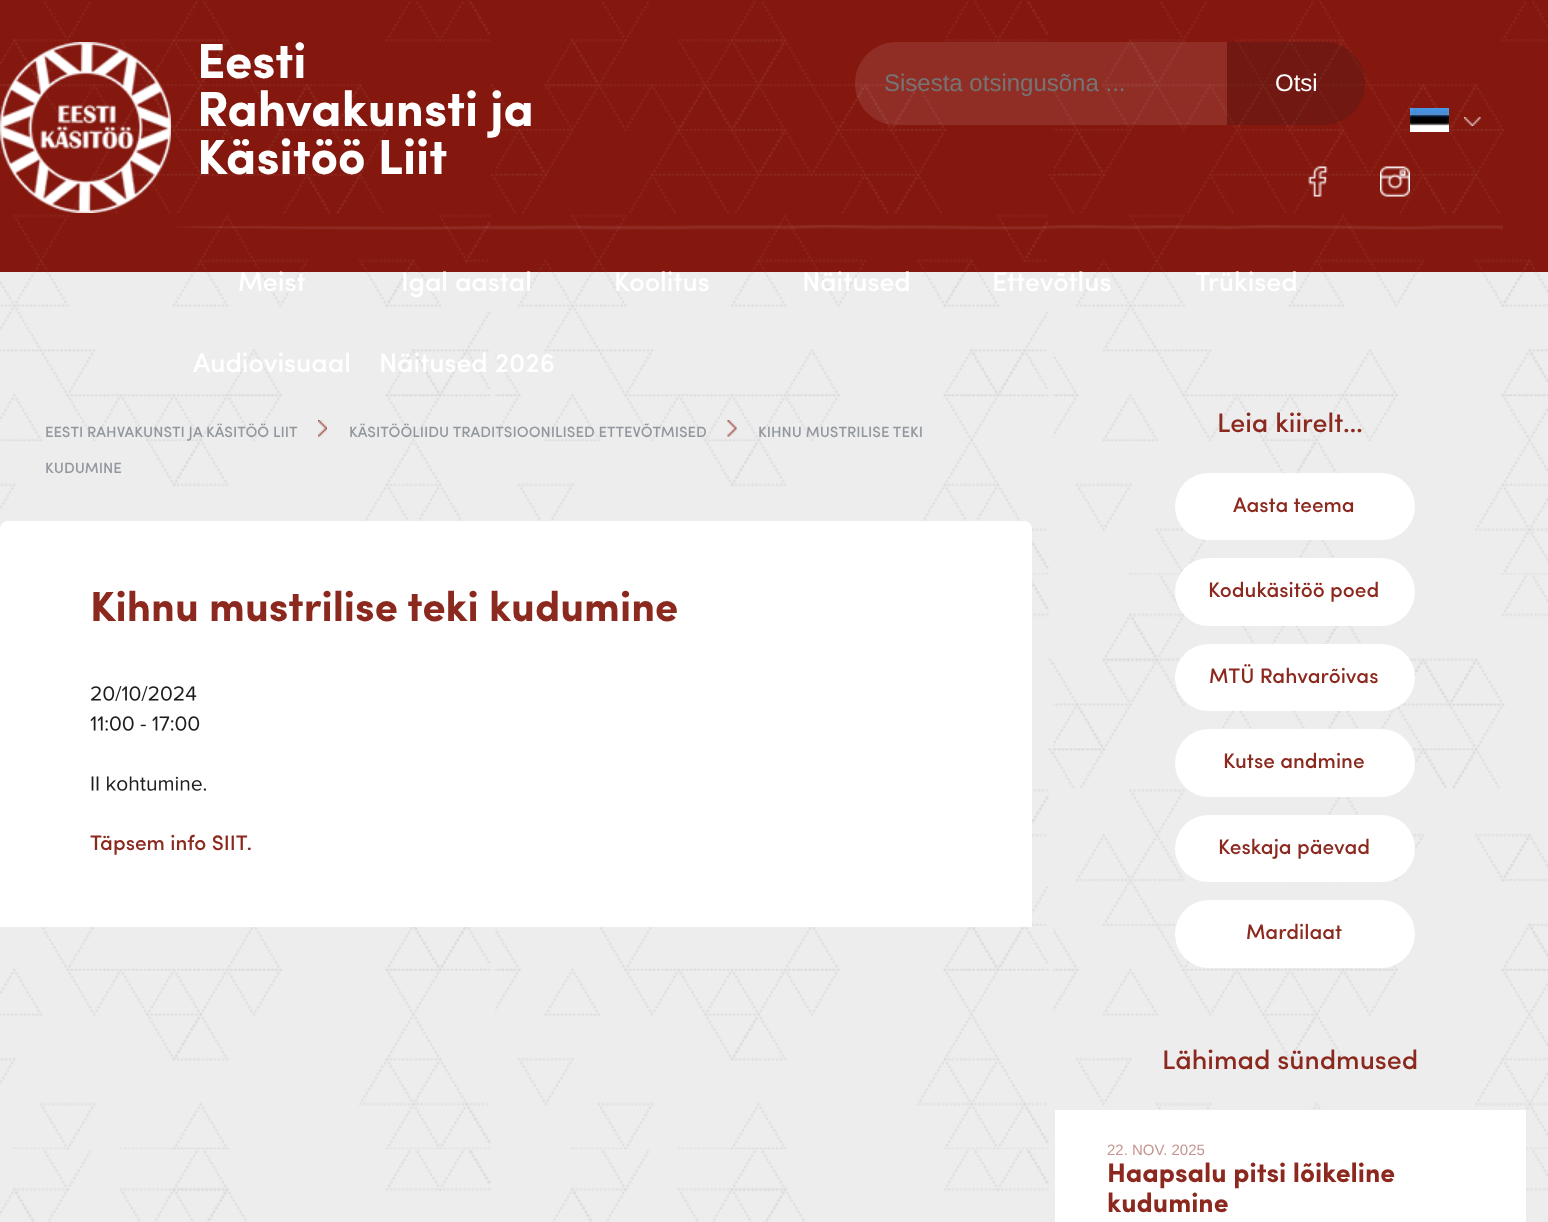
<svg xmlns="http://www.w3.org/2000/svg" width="1548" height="1222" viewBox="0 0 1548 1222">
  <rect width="100%" height="100%" fill="#ededed"/>
  <image x="0" y="272" width="1548" height="950" href="img1.png"/>
  <rect x="0" y="0" width="1548" height="272" fill="#84170e"/>
  <image x="0" y="0" width="1548" height="272" href="img2.png"/>
  <image x="0" y="42" width="171" height="171" href="img3.png"/>
  <text x="197" y="78" font-family="Sofia" font-size="49.5" font-weight="bold" fill="#ffffff">Eesti</text>
  <text x="197" y="126" font-family="Sofia" font-size="49.5" font-weight="bold" fill="#ffffff">Rahvakunsti ja</text>
  <text x="197" y="174" font-family="Sofia" font-size="49.5" font-weight="bold" fill="#ffffff">Käsitöö Liit</text>
  <path d="M896.5 42H1227V125H896.5C873.5 125 855 106.5 855 83.5C855 60.5 873.5 42 896.5 42Z" fill="#ffffff" fill-opacity="0.1"/>
  <text x="884" y="91" font-family="Liberation Sans" font-size="24" fill="#757575">Sisesta otsingusõna ...</text>
  <path d="M1227 42H1323.5C1346.5 42 1365 60.5 1365 83.5C1365 106.5 1346.5 125 1323.5 125H1227Z" fill="#231f20" fill-opacity="0.2"/>
  <text x="1275" y="91" font-family="Liberation Sans" font-size="24" fill="#ffffff">Otsi</text>
  <image x="1410" y="108" width="39" height="24" href="img4.png"/>
  <image x="1464" y="117" width="17" height="9" href="img5.png"/>
  <image x="1308" y="166" width="20" height="31" href="img6.png"/>
  <image x="1380" y="166" width="30" height="31" href="img7.png"/>
  <image x="176" y="225" width="1327" height="5" href="img8.png"/>
  <text x="238" y="291" font-family="Sofia" font-size="27" font-weight="500" fill="#ffffff">Meist</text>
  <text x="401" y="291" font-family="Sofia" font-size="27" font-weight="500" fill="#ffffff">Igal aastal</text>
  <text x="614" y="291" font-family="Sofia" font-size="27" font-weight="500" fill="#ffffff">Koolitus</text>
  <text x="802" y="291" font-family="Sofia" font-size="27" font-weight="500" fill="#ffffff">Näitused</text>
  <text x="992" y="291" font-family="Sofia" font-size="27" font-weight="500" fill="#ffffff">Ettevõtlus</text>
  <text x="1195" y="291" font-family="Sofia" font-size="27" font-weight="500" fill="#ffffff">Trükised</text>
  <text x="193" y="372" font-family="Sofia" font-size="27" font-weight="500" fill="#ffffff">Audiovisuaal</text>
  <text x="379" y="372" font-family="Sofia" font-size="27" font-weight="500" fill="#ffffff">Näitused 2026</text>
  <text x="45" y="437" font-family="Sofia" font-size="15" font-weight="500" fill="#92979e">EESTI RAHVAKUNSTI JA KÄSITÖÖ LIIT</text>
  <image x="318" y="420" width="9" height="17" href="img9.png"/>
  <text x="349" y="437" font-family="Sofia" font-size="15" font-weight="500" fill="#92979e">KÄSITÖÖLIIDU TRADITSIOONILISED ETTEVÕTMISED</text>
  <image x="727" y="420" width="10" height="17" href="img10.png"/>
  <text x="758" y="437" font-family="Sofia" font-size="15" font-weight="500" fill="#92979e">KIHNU MUSTRILISE TEKI</text>
  <text x="45" y="473" font-family="Sofia" font-size="15" font-weight="500" fill="#92979e">KUDUMINE</text>
  <path d="M8 521H1024C1028.5 521 1032 524.5 1032 529V927H0V529C0 524.5 3.5 521 8 521Z" fill="#ffffff"/>
  <text x="90" y="621" font-family="Sofia" font-size="42" font-weight="bold" fill="#8c291f">Kihnu mustrilise teki kudumine</text>
  <image x="91" y="686" width="106" height="15" href="img11.png"/>
  <image x="90" y="716" width="110" height="15" href="img12.png"/>
  <image x="91" y="776" width="116" height="15" href="img13.png"/>
  <text x="90" y="850" font-family="Sofia" font-size="21" font-weight="500" fill="#8c291f">Täpsem info SIIT.</text>
  <text x="1217" y="432" font-family="Sofia" font-size="27" font-weight="500" fill="#8c291f">Leia kiirelt…</text>
  <rect x="1175" y="473" width="240" height="67" rx="33.5" fill="#ffffff"/>
  <text x="1233" y="512" font-family="Sofia" font-size="21" font-weight="500" fill="#8c291f">Aasta teema</text>
  <rect x="1175" y="558" width="240" height="68" rx="34" fill="#ffffff"/>
  <text x="1208" y="597" font-family="Sofia" font-size="21" font-weight="500" fill="#8c291f">Kodukäsitöö poed</text>
  <rect x="1175" y="644" width="240" height="67" rx="33.5" fill="#ffffff"/>
  <text x="1209" y="683" font-family="Sofia" font-size="21" font-weight="500" fill="#8c291f">MTÜ Rahvarõivas</text>
  <rect x="1175" y="729" width="240" height="68" rx="34" fill="#ffffff"/>
  <text x="1223" y="768" font-family="Sofia" font-size="21" font-weight="500" fill="#8c291f">Kutse andmine</text>
  <rect x="1175" y="815" width="240" height="67" rx="33.5" fill="#ffffff"/>
  <text x="1218" y="854" font-family="Sofia" font-size="21" font-weight="500" fill="#8c291f">Keskaja päevad</text>
  <rect x="1175" y="900" width="240" height="68" rx="34" fill="#ffffff"/>
  <text x="1246" y="939" font-family="Sofia" font-size="21" font-weight="500" fill="#8c291f">Mardilaat</text>
  <text x="1162" y="1069" font-family="Sofia" font-size="27" font-weight="500" fill="#8c291f">Lähimad sündmused</text>
  <rect x="1055" y="1110" width="471" height="112" fill="#ffffff"/>
  <text x="1107" y="1155" font-family="Liberation Sans" font-size="15" fill="#c6948f">22. NOV. 2025</text>
  <text x="1107" y="1182" font-family="Sofia" font-size="27" font-weight="bold" fill="#8c291f">Haapsalu pitsi lõikeline</text>
  <text x="1107" y="1212" font-family="Sofia" font-size="27" font-weight="bold" fill="#8c291f">kudumine</text>
</svg>
